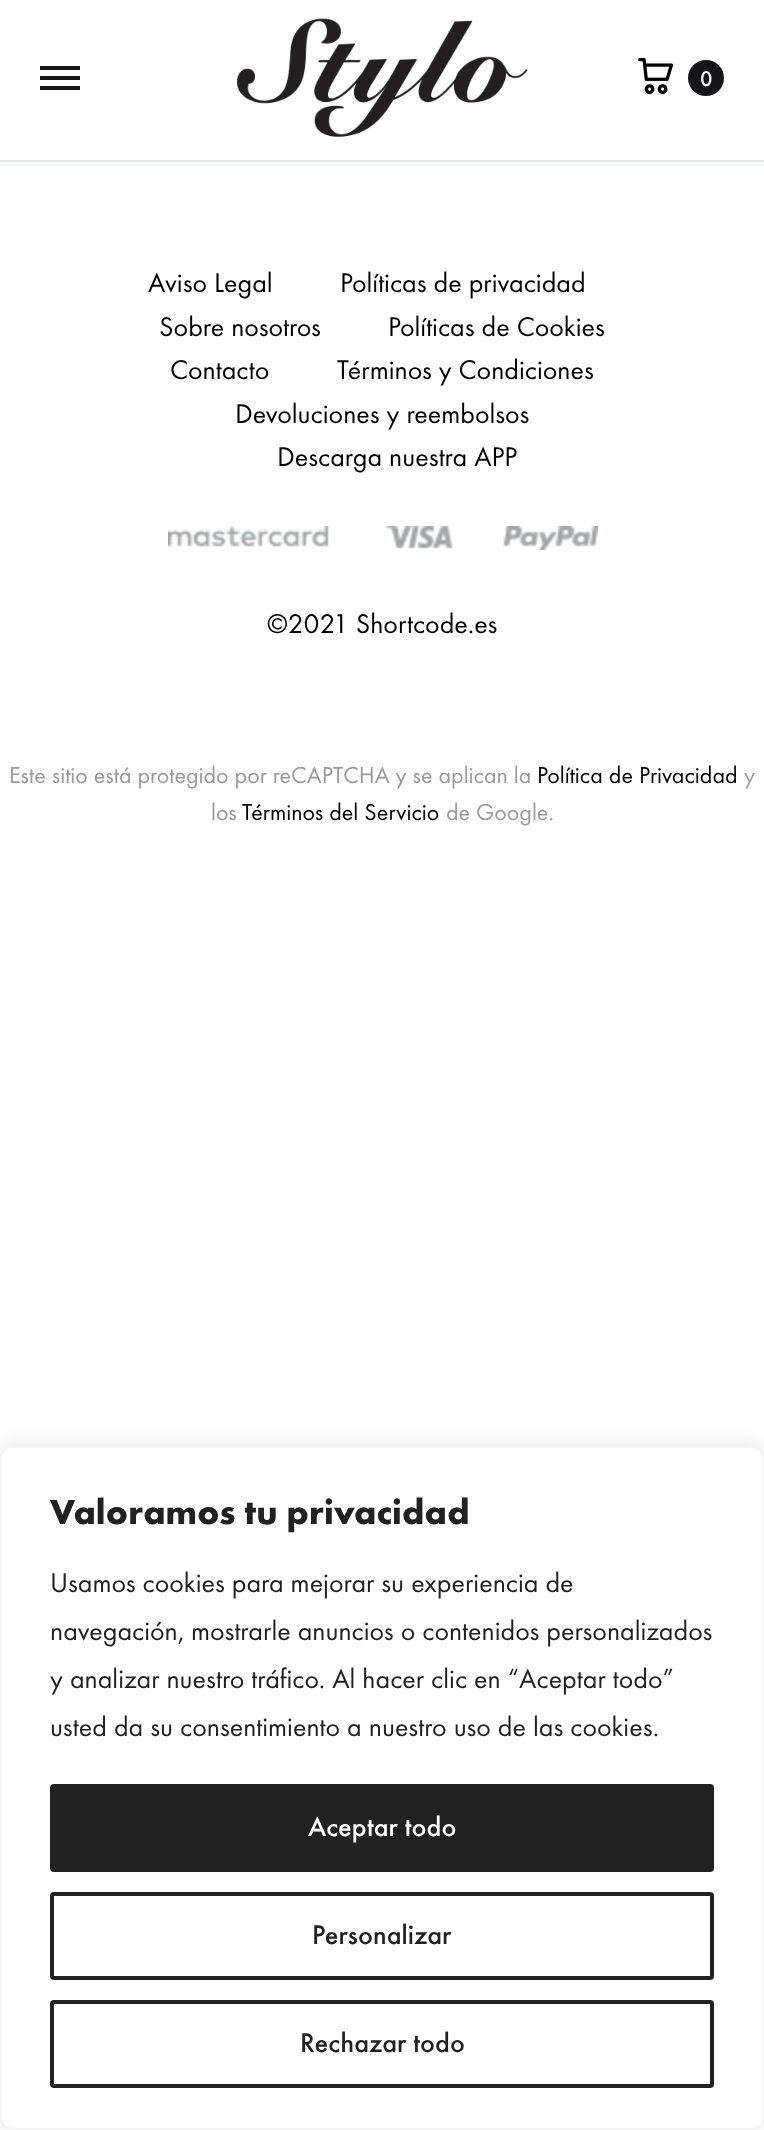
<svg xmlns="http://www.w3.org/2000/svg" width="764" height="2130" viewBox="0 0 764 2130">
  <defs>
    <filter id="blur1" x="-50%" y="-200%" width="200%" height="500%"><feGaussianBlur stdDeviation="10"/></filter>
  </defs>
  <rect width="100%" height="100%" fill="#ffffff"/>
  <rect x="40" y="76" width="40" height="4" fill="#161619"/>
  <rect x="40" y="66" width="40" height="4" fill="#161619"/>
  <rect x="40" y="86" width="40" height="4" fill="#161619"/>
  <image x="237" y="18" width="291" height="119" href="img1.png"/>
  <image x="638" y="58" width="35" height="36" href="img2.png"/>
  <circle cx="706" cy="78" r="18" fill="#161619"/>
  <text x="700" y="86" font-family="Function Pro" font-size="22" font-weight="500" fill="#ffffff">0</text>
  <rect x="0" y="160" width="764" height="2" fill="#e3e7e8"/>
  <text x="148" y="292" font-family="Function Pro" font-size="28" fill="#000000">Aviso Legal</text>
  <text x="340" y="292" font-family="Function Pro" font-size="28" fill="#000000">Políticas de privacidad</text>
  <text x="159" y="336" font-family="Function Pro" font-size="28" fill="#000000">Sobre nosotros</text>
  <text x="388" y="336" font-family="Function Pro" font-size="28" fill="#000000">Políticas de Cookies</text>
  <text x="170" y="379" font-family="Function Pro" font-size="28" fill="#000000">Contacto</text>
  <text x="337" y="379" font-family="Function Pro" font-size="28" fill="#000000">Términos y Condiciones</text>
  <text x="235" y="423" font-family="Function Pro" font-size="28" fill="#000000">Devoluciones y reembolsos</text>
  <text x="277" y="466" font-family="Function Pro" font-size="28" fill="#000000">Descarga nuestra APP</text>
  <image x="168" y="526" width="430" height="24" href="img3.png"/>
  <text x="267" y="633" font-family="Function Pro" font-size="28" fill="#000000">©2021 Shortcode.es</text>
  <text x="9" y="783" font-family="Function Pro" font-size="24" fill="#999999">Este sitio está protegido por reCAPTCHA y se aplican la</text>
  <text x="537" y="783" font-family="Function Pro" font-size="24" fill="#000000">Política de Privacidad</text>
  <text x="744" y="783" font-family="Function Pro" font-size="24" fill="#999999">y</text>
  <text x="211" y="820" font-family="Function Pro" font-size="24" fill="#999999">los</text>
  <text x="242" y="820" font-family="Function Pro" font-size="24" fill="#000000">Términos del Servicio</text>
  <text x="446" y="820" font-family="Function Pro" font-size="24" fill="#999999">de Google.</text>
  <rect x="0" y="1444" width="764" height="684" rx="12" fill="#acabab" fill-opacity="0.3" filter="url(#blur1)"/>
  <rect x="1" y="1447" width="762" height="682" rx="11" fill="#ffffff" stroke="#f4f4f4" stroke-width="2"/>
  <text x="50" y="1524" font-family="Function Pro" font-size="36" font-weight="bold" fill="#212121">Valoramos tu privacidad</text>
  <text x="50" y="1592" font-family="Function Pro" font-size="28" fill="#212121">Usamos cookies para mejorar su experiencia de</text>
  <text x="50" y="1640" font-family="Function Pro" font-size="28" fill="#212121">navegación, mostrarle anuncios o contenidos personalizados</text>
  <text x="50" y="1688" font-family="Function Pro" font-size="28" fill="#212121">y analizar nuestro tráfico. Al hacer clic en “Aceptar todo”</text>
  <text x="50" y="1736" font-family="Function Pro" font-size="28" fill="#212121">usted da su consentimiento a nuestro uso de las cookies.</text>
  <rect x="52" y="1786" width="660" height="84" rx="2" fill="#212121" stroke="#212121" stroke-width="4"/>
  <text x="308" y="1836" font-family="Function Pro" font-size="28" font-weight="500" fill="#ffffff">Aceptar todo</text>
  <rect x="52" y="1894" width="660" height="84" rx="2" fill="none" stroke="#212121" stroke-width="4"/>
  <text x="312" y="1944" font-family="Function Pro" font-size="28" font-weight="500" fill="#212121">Personalizar</text>
  <rect x="52" y="2002" width="660" height="84" rx="2" fill="none" stroke="#212121" stroke-width="4"/>
  <text x="300" y="2052" font-family="Function Pro" font-size="28" font-weight="500" fill="#212121">Rechazar todo</text>
</svg>
